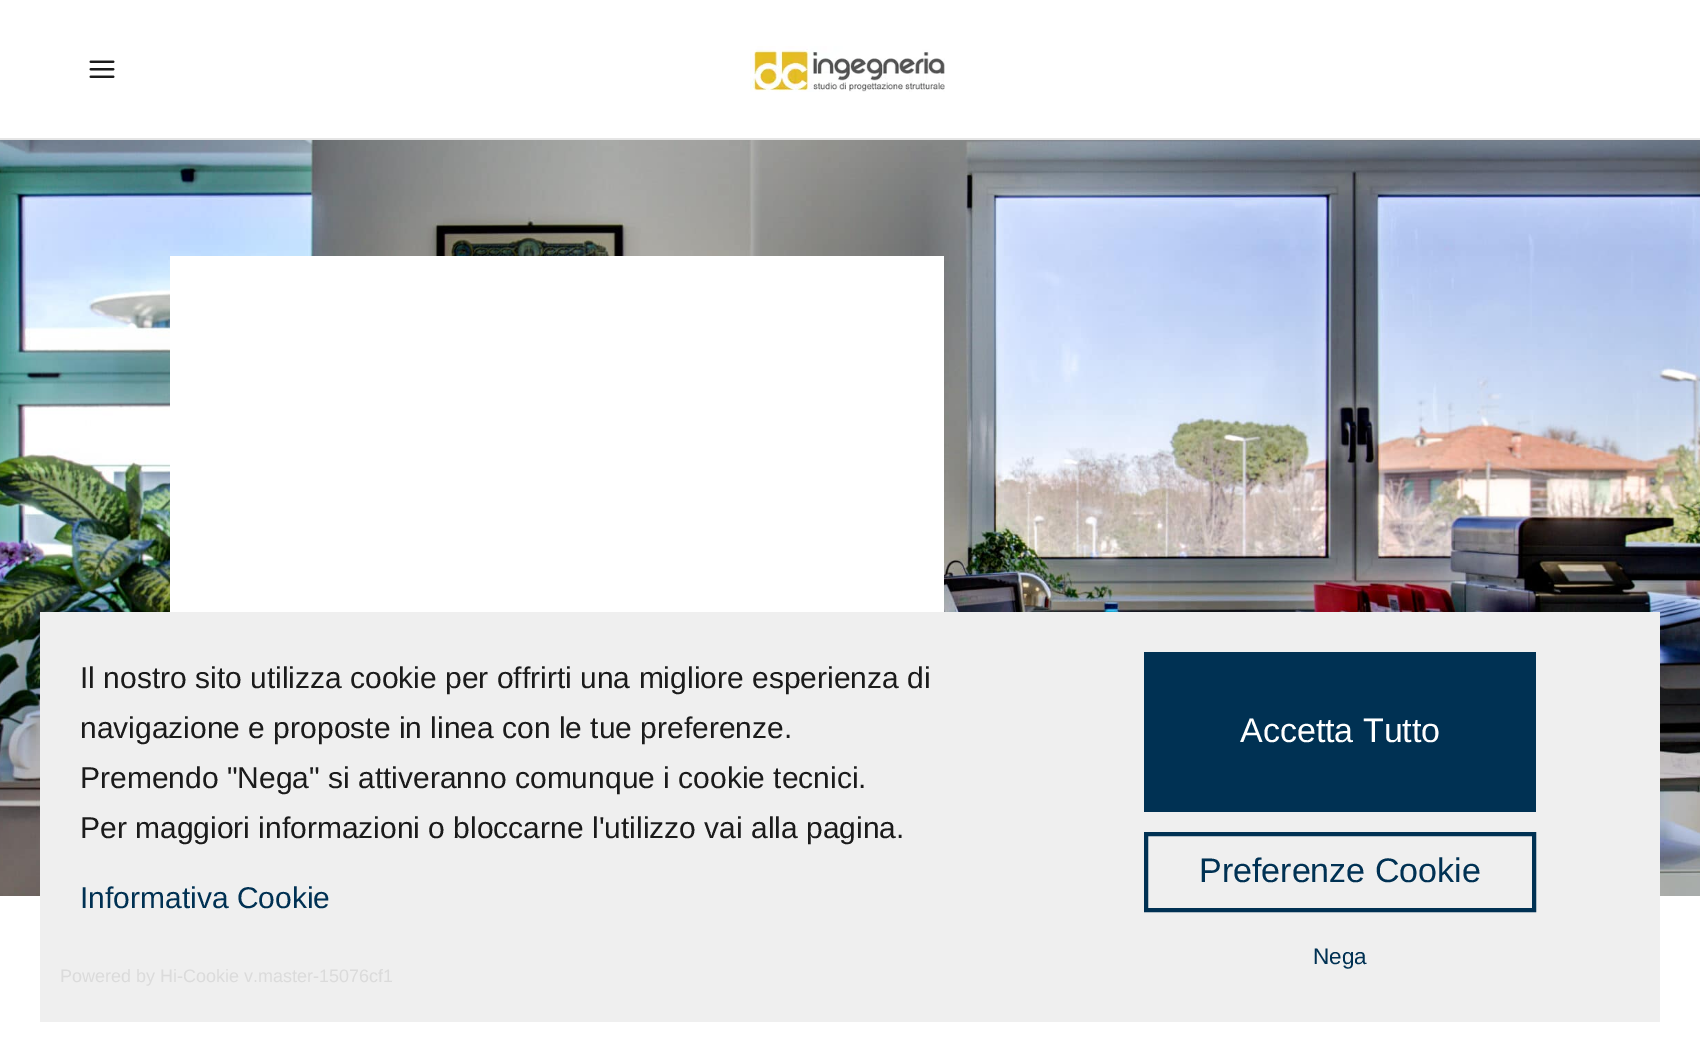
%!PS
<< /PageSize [1700 1062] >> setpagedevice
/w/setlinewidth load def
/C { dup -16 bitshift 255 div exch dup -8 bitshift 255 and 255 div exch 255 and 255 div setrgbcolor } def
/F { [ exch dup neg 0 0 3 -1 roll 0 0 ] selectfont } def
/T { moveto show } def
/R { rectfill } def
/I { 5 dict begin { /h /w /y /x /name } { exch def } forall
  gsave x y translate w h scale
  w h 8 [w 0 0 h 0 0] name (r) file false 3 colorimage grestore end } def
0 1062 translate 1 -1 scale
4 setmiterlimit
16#FFFFFF C
0 0 1700 1062 R
16#E5E5E5 C
0 138 1700 2 R
(1.rgb) 89 60 26 18 I
(2.rgb) 750 46 195 46 I
(3.rgb) 0 140 1700 756 I
16#FFFFFF C
170 256 774 356 R
16#EFEFEF C
40 612 1620 410 R
/LiberationSans-Regular 30 F
16#1B1B1B C
(Il nostro sito utilizza cookie per offrirti una migliore esperienza di) 80 688 T
(navigazione e proposte in linea con le tue preferenze.) 80 738 T
(Premendo "Nega" si attiveranno comunque i cookie tecnici.) 80 788 T
(Per maggiori informazioni o bloccarne l'utilizzo vai alla pagina.) 80 838 T
16#003153 C
(Informativa Cookie) 80 908 T
1144 652 392 160 R
/LiberationSans-Regular 34 F
16#FFFFFF C
(Accetta Tutto) 1240 742 T
16#003153 C
4 w
1146 834 388 76 rectstroke
(Preferenze Cookie) 1199 882 T
/LiberationSans-Regular 22.5 F
(Nega) 1313 964 T
/LiberationSans-Regular 18 F
16#DBDBDB C
(Powered by Hi-Cookie v.master-15076cf1) 60 982 T
showpage
